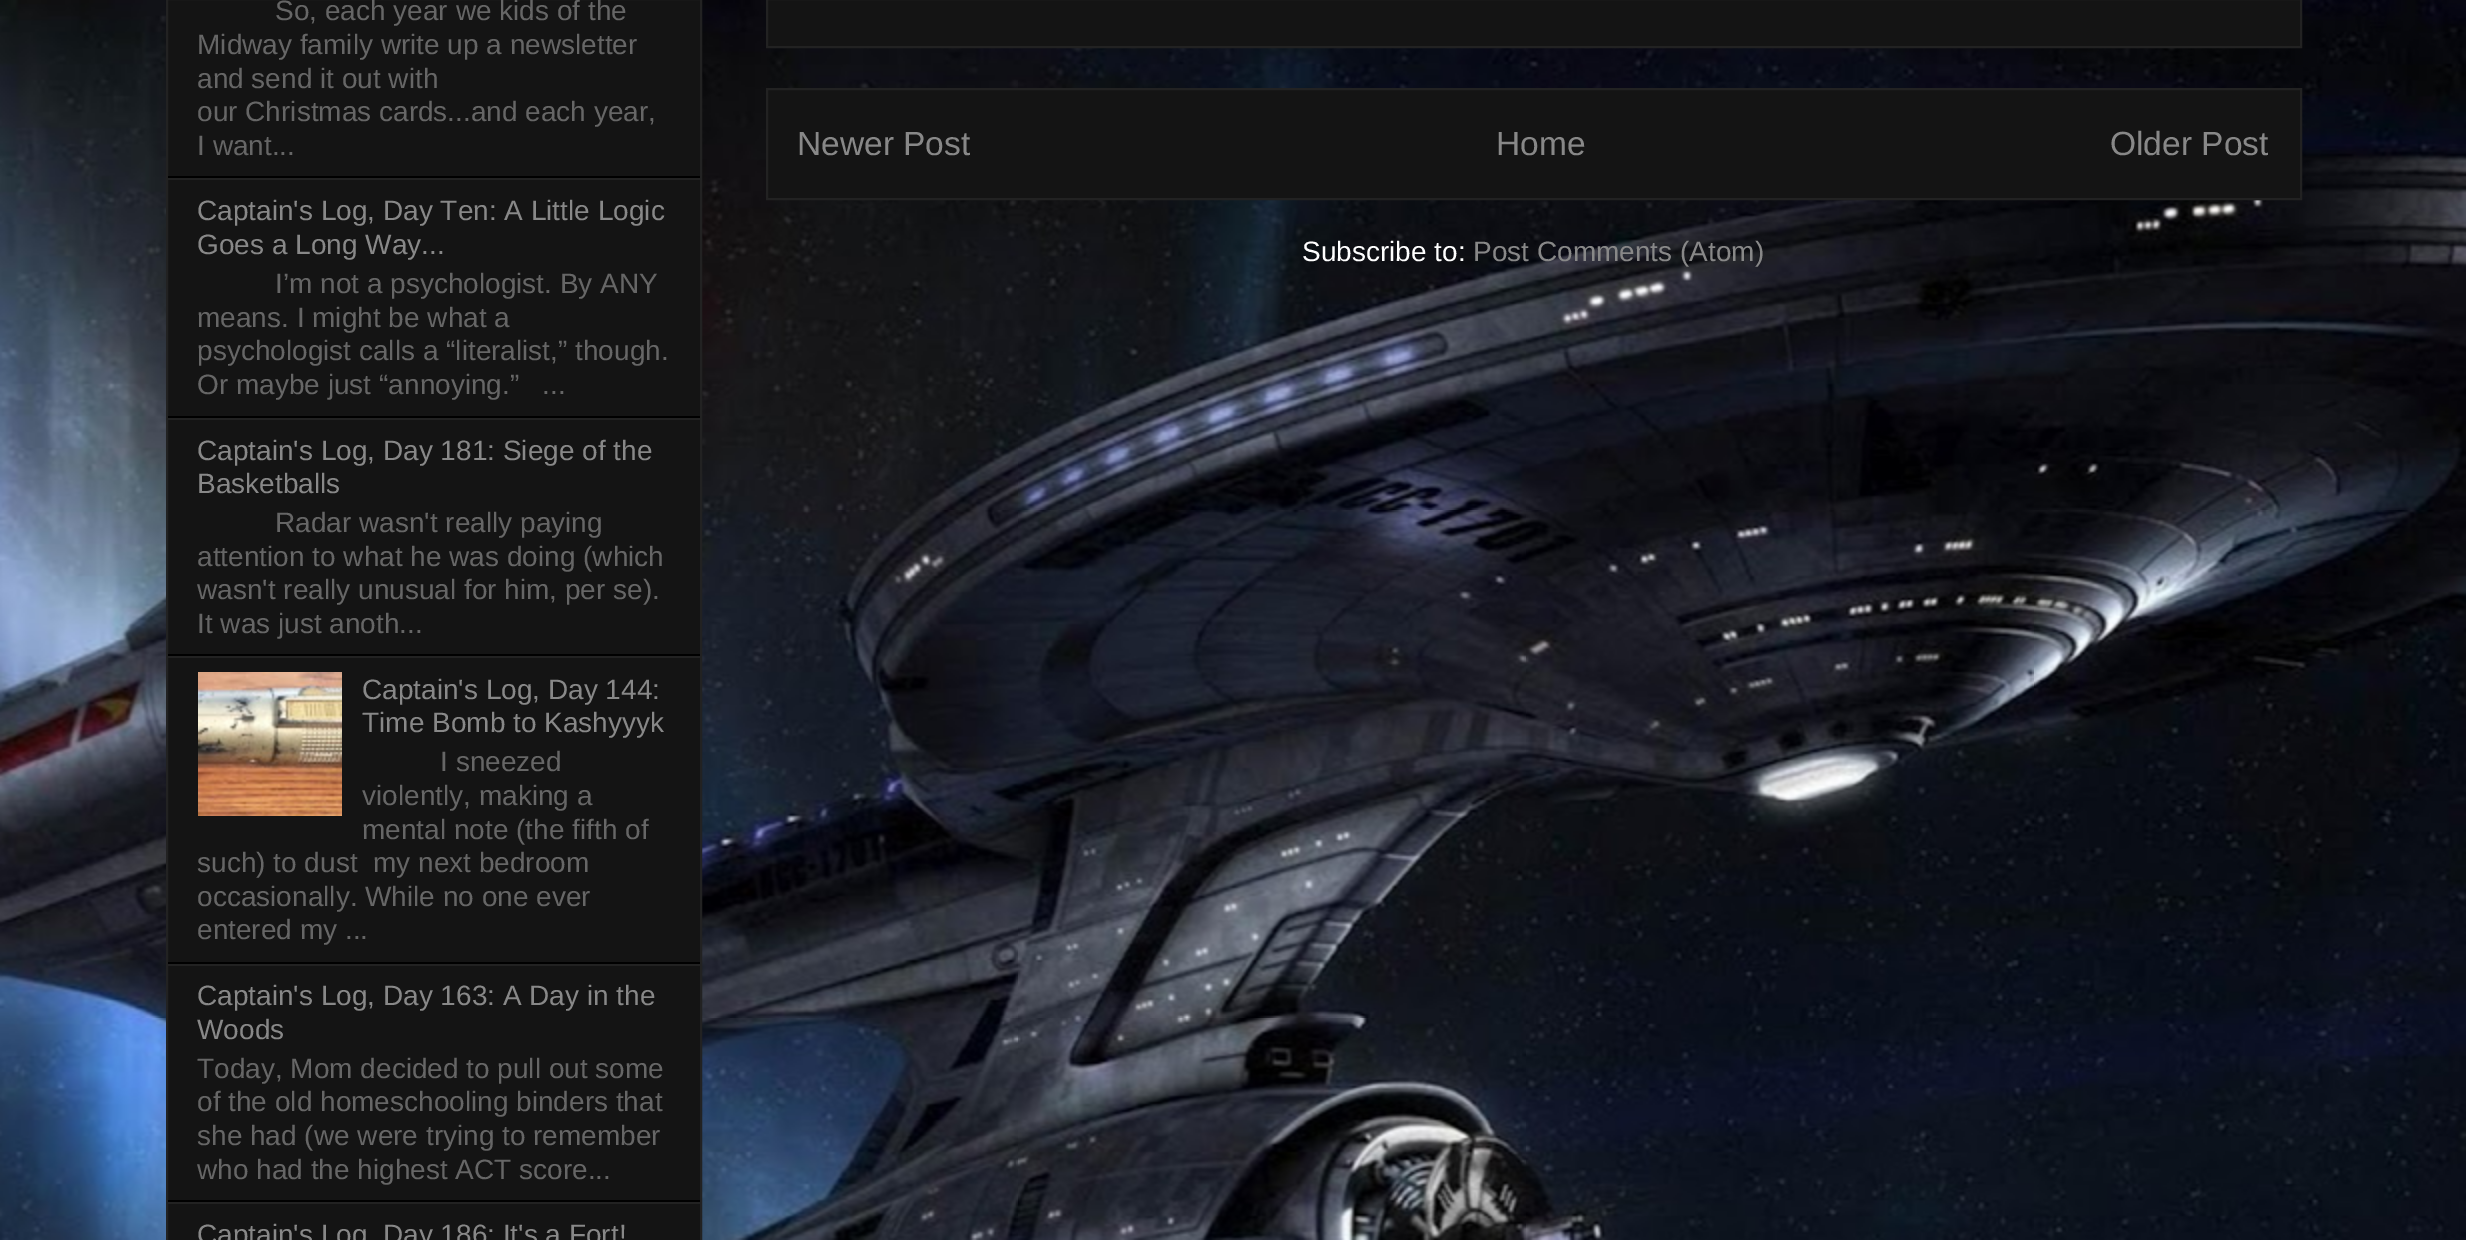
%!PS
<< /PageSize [2466 1240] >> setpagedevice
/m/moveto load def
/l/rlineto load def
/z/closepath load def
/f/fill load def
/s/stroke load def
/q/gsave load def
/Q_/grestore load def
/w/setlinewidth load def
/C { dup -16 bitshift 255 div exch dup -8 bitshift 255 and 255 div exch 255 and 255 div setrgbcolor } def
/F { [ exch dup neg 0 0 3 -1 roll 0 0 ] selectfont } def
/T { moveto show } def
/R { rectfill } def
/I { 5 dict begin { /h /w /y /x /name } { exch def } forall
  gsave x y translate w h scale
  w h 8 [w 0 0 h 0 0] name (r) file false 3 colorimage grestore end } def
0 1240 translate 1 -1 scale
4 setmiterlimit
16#FFFFFF C
0 0 2466 1240 R
(1.rgb) 0 0 2466 1240 I
16#141414 C
167 -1 m 534 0 l 0 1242 l -534 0 l z q f Q_
16#222222 C
2 w
s
16#000000 C
168 176 532 2 R
/LiberationSans-Regular 28 F
16#666666 C
(So, each year we kids of the) 275 20 T
(Midway family write up a newsletter) 197 54 T
(and send it out with) 197 88 T
(our Christmas cards...and each year,) 197 121 T
(I want...) 197 155 T
16#222222 C
168 178 532 2 R
16#000000 C
168 416 532 2 R
16#888888 C
(Captain's Log, Day Ten: A Little Logic) 197 220 T
(Goes a Long Way...) 197 254 T
16#666666 C
(I’m not a psychologist. By ANY) 275 293 T
(means. I might be what a) 197 327 T
(psychologist calls a “literalist,” though.) 197 360 T
(Or maybe just “annoying.”) 197 394 T
(...) 542 394 T
16#222222 C
168 418 532 2 R
16#000000 C
168 654 532 2 R
16#888888 C
(Captain's Log, Day 181: Siege of the) 197 460 T
(Basketballs) 197 493 T
16#666666 C
(Radar wasn't really paying) 275 532 T
(attention to what he was doing \(which) 197 566 T
(wasn't really unusual for him, per se\).) 197 599 T
(It was just anoth...) 197 633 T
16#222222 C
168 656 532 2 R
16#000000 C
168 962 532 2 R
(2.rgb) 198 672 144 144 I
16#888888 C
(Captain's Log, Day 144:) 362 699 T
(Time Bomb to Kashyyyk) 362 732 T
16#666666 C
(I sneezed) 440 771 T
(violently, making a) 362 805 T
(mental note \(the fifth of) 362 839 T
(such\) to dust  my next bedroom) 197 872 T
(occasionally. While no one ever) 197 906 T
(entered my ...) 197 939 T
16#222222 C
168 964 532 2 R
16#000000 C
168 1200 532 2 R
16#888888 C
(Captain's Log, Day 163: A Day in the) 197 1005 T
(Woods) 197 1039 T
16#666666 C
(Today, Mom decided to pull out some) 197 1078 T
(of the old homeschooling binders that) 197 1111 T
(she had \(we were trying to remember) 197 1145 T
(who had the highest ACT score...) 197 1179 T
16#222222 C
168 1202 532 2 R
16#888888 C
(Captain's Log, Day 186: It's a Fort!) 197 1244 T
16#141414 C
767 -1 m 1534 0 l 0 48 l -1534 0 l z q f Q_
16#222222 C
s
16#141414 C
767 89 m 1534 0 l 0 110 l -1534 0 l z q f Q_
16#222222 C
s
/LiberationSans-Regular 33.5 F
16#888888 C
(Newer Post) 797 155 T
(Home) 1496 155 T
(Older Post) 2110 155 T
/LiberationSans-Regular 28 F
16#FFFFFF C
(Subscribe to:) 1302 261 T
16#888888 C
(Post Comments \(Atom\)) 1473 261 T
showpage
